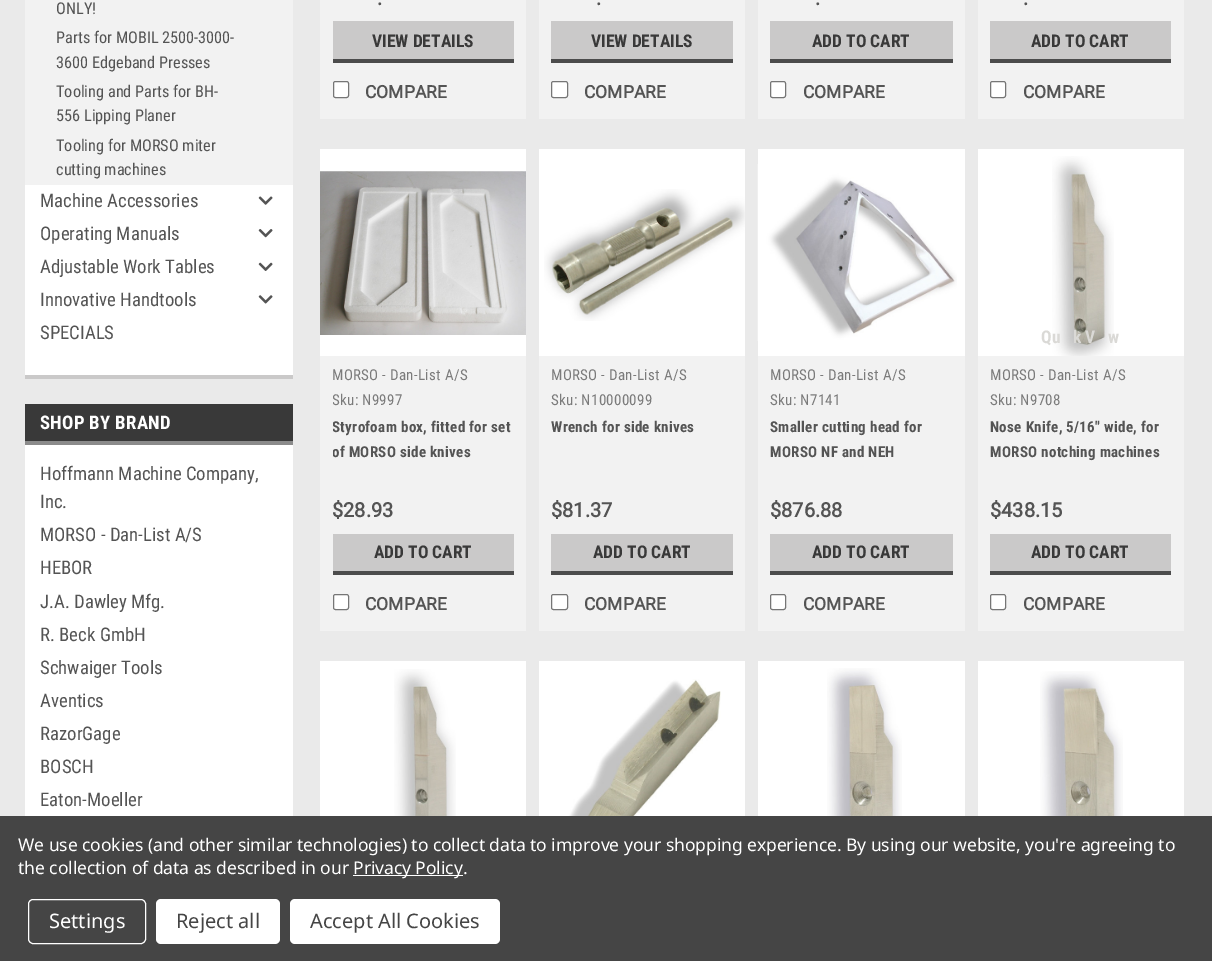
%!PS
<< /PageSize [1212 961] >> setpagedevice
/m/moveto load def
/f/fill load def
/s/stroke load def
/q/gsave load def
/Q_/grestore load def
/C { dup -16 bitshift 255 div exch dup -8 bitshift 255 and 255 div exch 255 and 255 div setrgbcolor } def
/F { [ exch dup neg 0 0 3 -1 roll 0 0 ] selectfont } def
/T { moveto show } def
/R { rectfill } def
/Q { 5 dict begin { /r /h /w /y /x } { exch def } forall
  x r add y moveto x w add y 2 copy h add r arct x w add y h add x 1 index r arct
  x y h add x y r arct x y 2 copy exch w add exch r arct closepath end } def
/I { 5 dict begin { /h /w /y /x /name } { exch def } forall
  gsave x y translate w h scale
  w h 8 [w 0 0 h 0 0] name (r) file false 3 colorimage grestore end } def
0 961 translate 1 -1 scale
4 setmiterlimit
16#EAEAEA C
0 0 1212 961 R
16#CAC9C9 C
25 375 268 4 R
16#FFFFFF C
25 185 268 190 R
16#F2F2F2 C
25 0 268 185 R
/RobotoCondensed-Regular 16.25 F
16#545454 C
(ONLY!) 56 14 T
(Parts for MOBIL 2500-3000-) 56 43 T
(3600 Edgeband Presses) 56 68 T
(Tooling and Parts for BH-) 56 97 T
(556 Lipping Planer) 56 121 T
(Tooling for MORSO miter) 56 151 T
(cutting machines) 56 175 T
/RobotoCondensed-Regular 18.75 F
(Machine Accessories) 40 207 T
(1.rgb) 258 196 15 9 I
(Operating Manuals) 40 240 T
(2.rgb) 258 229 15 9 I
(Adjustable Work Tables) 40 273 T
(3.rgb) 258 262 15 9 I
(Innovative Handtools) 40 306 T
(4.rgb) 258 295 15 9 I
(SPECIALS) 40 339 T
16#393939 C
25 404 268 37 R
16#8B8B8B C
25 441 268 4 R
/RobotoCondensed-Bold 18.75 F
16#FFFFFF C
40 429 m .3 0 (SHOP BY BRAND) ashow
25 445 268 371 R
/RobotoCondensed-Regular 18.75 F
16#545454 C
(Hoffmann Machine Company,) 40 480 T
(Inc.) 40 508 T
(MORSO - Dan-List A/S) 40 541 T
(HEBOR) 40 574 T
(J.A. Dawley Mfg.) 40 608 T
(R. Beck GmbH) 40 641 T
(Schwaiger Tools) 40 674 T
(Aventics) 40 707 T
(RazorGage) 40 740 T
(BOSCH) 40 773 T
(Eaton-Moeller) 40 806 T
16#F2F2F2 C
320 0 206 119 R
/Roboto-Bold 20 F
16#545454 C
(.) 377 5 T
16#CAC9C9 C
333 21 181 38 R
16#4C4C4C C
333 59 181 4 R
/RobotoCondensed-Bold 17.5 F
16#393939 C
(VIEW DETAILS) 372 47 T
16#FFFFFF C
333.5 81.5 15 16 2 Q q f Q_
16#767676 C
s
/Roboto-Bold 17.5 F
16#545454 C
(COMPARE) 365 98 T
16#F2F2F2 C
539 0 206 119 R
/Roboto-Bold 20 F
16#545454 C
(.) 596 5 T
16#CAC9C9 C
551 21 182 38 R
16#4C4C4C C
551 59 182 4 R
/RobotoCondensed-Bold 17.5 F
16#393939 C
(VIEW DETAILS) 591 47 T
16#FFFFFF C
551.5 81.5 16 16 2 Q q f Q_
16#767676 C
s
/Roboto-Bold 17.5 F
16#545454 C
(COMPARE) 584 98 T
16#F2F2F2 C
758 0 207 119 R
/Roboto-Bold 20 F
16#545454 C
(.) 815 5 T
16#CAC9C9 C
770 21 183 38 R
16#4C4C4C C
770 59 183 4 R
/RobotoCondensed-Bold 17.5 F
16#393939 C
(ADD TO CART) 812 47 T
16#FFFFFF C
770.5 81.5 15 16 2 Q q f Q_
16#767676 C
s
/Roboto-Bold 17.5 F
16#545454 C
(COMPARE) 803 98 T
16#F2F2F2 C
978 0 206 119 R
/Roboto-Bold 20 F
16#545454 C
(.) 1023 5 T
16#CAC9C9 C
990 21 181 38 R
16#4C4C4C C
990 59 181 4 R
/RobotoCondensed-Bold 17.5 F
16#393939 C
(ADD TO CART) 1031 47 T
16#FFFFFF C
990.5 81.5 15 16 2 Q q f Q_
16#767676 C
s
/Roboto-Bold 17.5 F
16#545454 C
(COMPARE) 1023 98 T
16#F2F2F2 C
320 356 206 275 R
16#FFFFFF C
320 149 206 207 R
(5.rgb) 320 171 206 164 I
/RobotoCondensed-Regular 15 F
16#7B7B7B C
332 380 m .3 0 (MORSO - Dan-List A/S) ashow
q
333 390 177 19 rectclip
332 405 m .3 0 (Sku:) ashow
Q_
362 405 m .3 0 (N9997) ashow
q
333 415 181 50 rectclip
/RobotoCondensed-Bold 15 F
16#545454 C
332 432 m .3 0 (Styrofoam box, fitted for set) ashow
332 457 m .3 0 (of MORSO side knives) ashow
Q_
/Roboto-Bold 20 F
16#545454 C
($28.93) 332 517 T
16#CAC9C9 C
333 534 181 37 R
16#4C4C4C C
333 571 181 4 R
/RobotoCondensed-Bold 17.5 F
16#393939 C
(ADD TO CART) 374 558 T
16#FFFFFF C
333.5 594.5 15 15 2 Q q f Q_
16#767676 C
s
/Roboto-Bold 17.5 F
16#545454 C
(COMPARE) 365 610 T
16#F2F2F2 C
539 356 206 275 R
16#FFFFFF C
539 149 206 207 R
(6.rgb) 544 189 201 132 I
/RobotoCondensed-Regular 15 F
16#7B7B7B C
551 380 m .3 0 (MORSO - Dan-List A/S) ashow
551 405 m .3 0 (Sku: N10000099) ashow
/RobotoCondensed-Bold 15 F
16#545454 C
551 432 m .3 0 (Wrench for side knives) ashow
/Roboto-Bold 20 F
($81.37) 551 517 T
16#CAC9C9 C
551 534 182 37 R
16#4C4C4C C
551 571 182 4 R
/RobotoCondensed-Bold 17.5 F
16#393939 C
(ADD TO CART) 593 558 T
16#FFFFFF C
551.5 594.5 16 15 2 Q q f Q_
16#767676 C
s
/Roboto-Bold 17.5 F
16#545454 C
(COMPARE) 584 610 T
16#F2F2F2 C
758 356 207 275 R
16#FFFFFF C
758 149 207 207 R
(7.rgb) 757 164 200 177 I
/RobotoCondensed-Regular 15 F
16#7B7B7B C
770 380 m .3 0 (MORSO - Dan-List A/S) ashow
770 405 m .3 0 (Sku: N7141) ashow
/RobotoCondensed-Bold 15 F
16#545454 C
770 432 m .3 0 (Smaller cutting head for) ashow
770 457 m .3 0 (MORSO NF and NEH) ashow
/Roboto-Bold 20 F
($876.88) 770 517 T
16#CAC9C9 C
770 534 183 37 R
16#4C4C4C C
770 571 183 4 R
/RobotoCondensed-Bold 17.5 F
16#393939 C
(ADD TO CART) 812 558 T
16#FFFFFF C
770.5 594.5 15 15 2 Q q f Q_
16#767676 C
s
/Roboto-Bold 17.5 F
16#545454 C
(COMPARE) 803 610 T
16#F2F2F2 C
978 356 206 275 R
16#FFFFFF C
978 149 206 207 R
(8.rgb) 1052 156 62 200 I
/RobotoCondensed-Bold 17.5 F
16#DAD9D6 C
(Qu) 1041 343 T
(k V) 1073 343 T
(w) 1108 343 T
/RobotoCondensed-Regular 15 F
16#7B7B7B C
990 380 m .3 0 (MORSO - Dan-List A/S) ashow
990 405 m .3 0 (Sku: N9708) ashow
/RobotoCondensed-Bold 15 F
16#545454 C
990 432 m .3 0 (Nose Knife, 5/16" wide, for) ashow
990 457 m .3 0 (MORSO notching machines) ashow
/Roboto-Bold 20 F
($438.15) 990 517 T
16#CAC9C9 C
990 534 181 37 R
16#4C4C4C C
990 571 181 4 R
/RobotoCondensed-Bold 17.5 F
16#393939 C
(ADD TO CART) 1031 558 T
16#FFFFFF C
990.5 594.5 15 15 2 Q q f Q_
16#767676 C
s
/Roboto-Bold 17.5 F
16#545454 C
(COMPARE) 1023 610 T
16#FFFFFF C
320 661 206 155 R
(9.rgb) 394 669 62 147 I
539 661 206 155 R
(10.rgb) 559 679 162 137 I
758 661 207 155 R
(11.rgb) 827 668 75 148 I
978 661 206 155 R
(12.rgb) 1040 671 83 145 I
16#454545 C
0 816 1212 145 R
/NotoSans-Regular 17.5 F
16#FFFFFF C
18 851 m -.06 0 (We use cookies \(and other similar technologies\) to collect data to improve your shopping experience. By using our website, you're agreeing to) ashow
18 874 m -.06 0 (the collection of data as described in our) ashow
353 875 110 1 R
353 874 m -.06 0 (Privacy Policy.) ashow
28.5 899.5 117 44 4.5 Q s
/NotoSans-Regular 20 F
(Settings) 49 928 T
156 899 124 45 5 Q f
16#454545 C
(Reject all) 176 928 T
16#FFFFFF C
290 899 210 45 5 Q f
16#454545 C
(Accept All Cookies) 310 928 T
showpage
